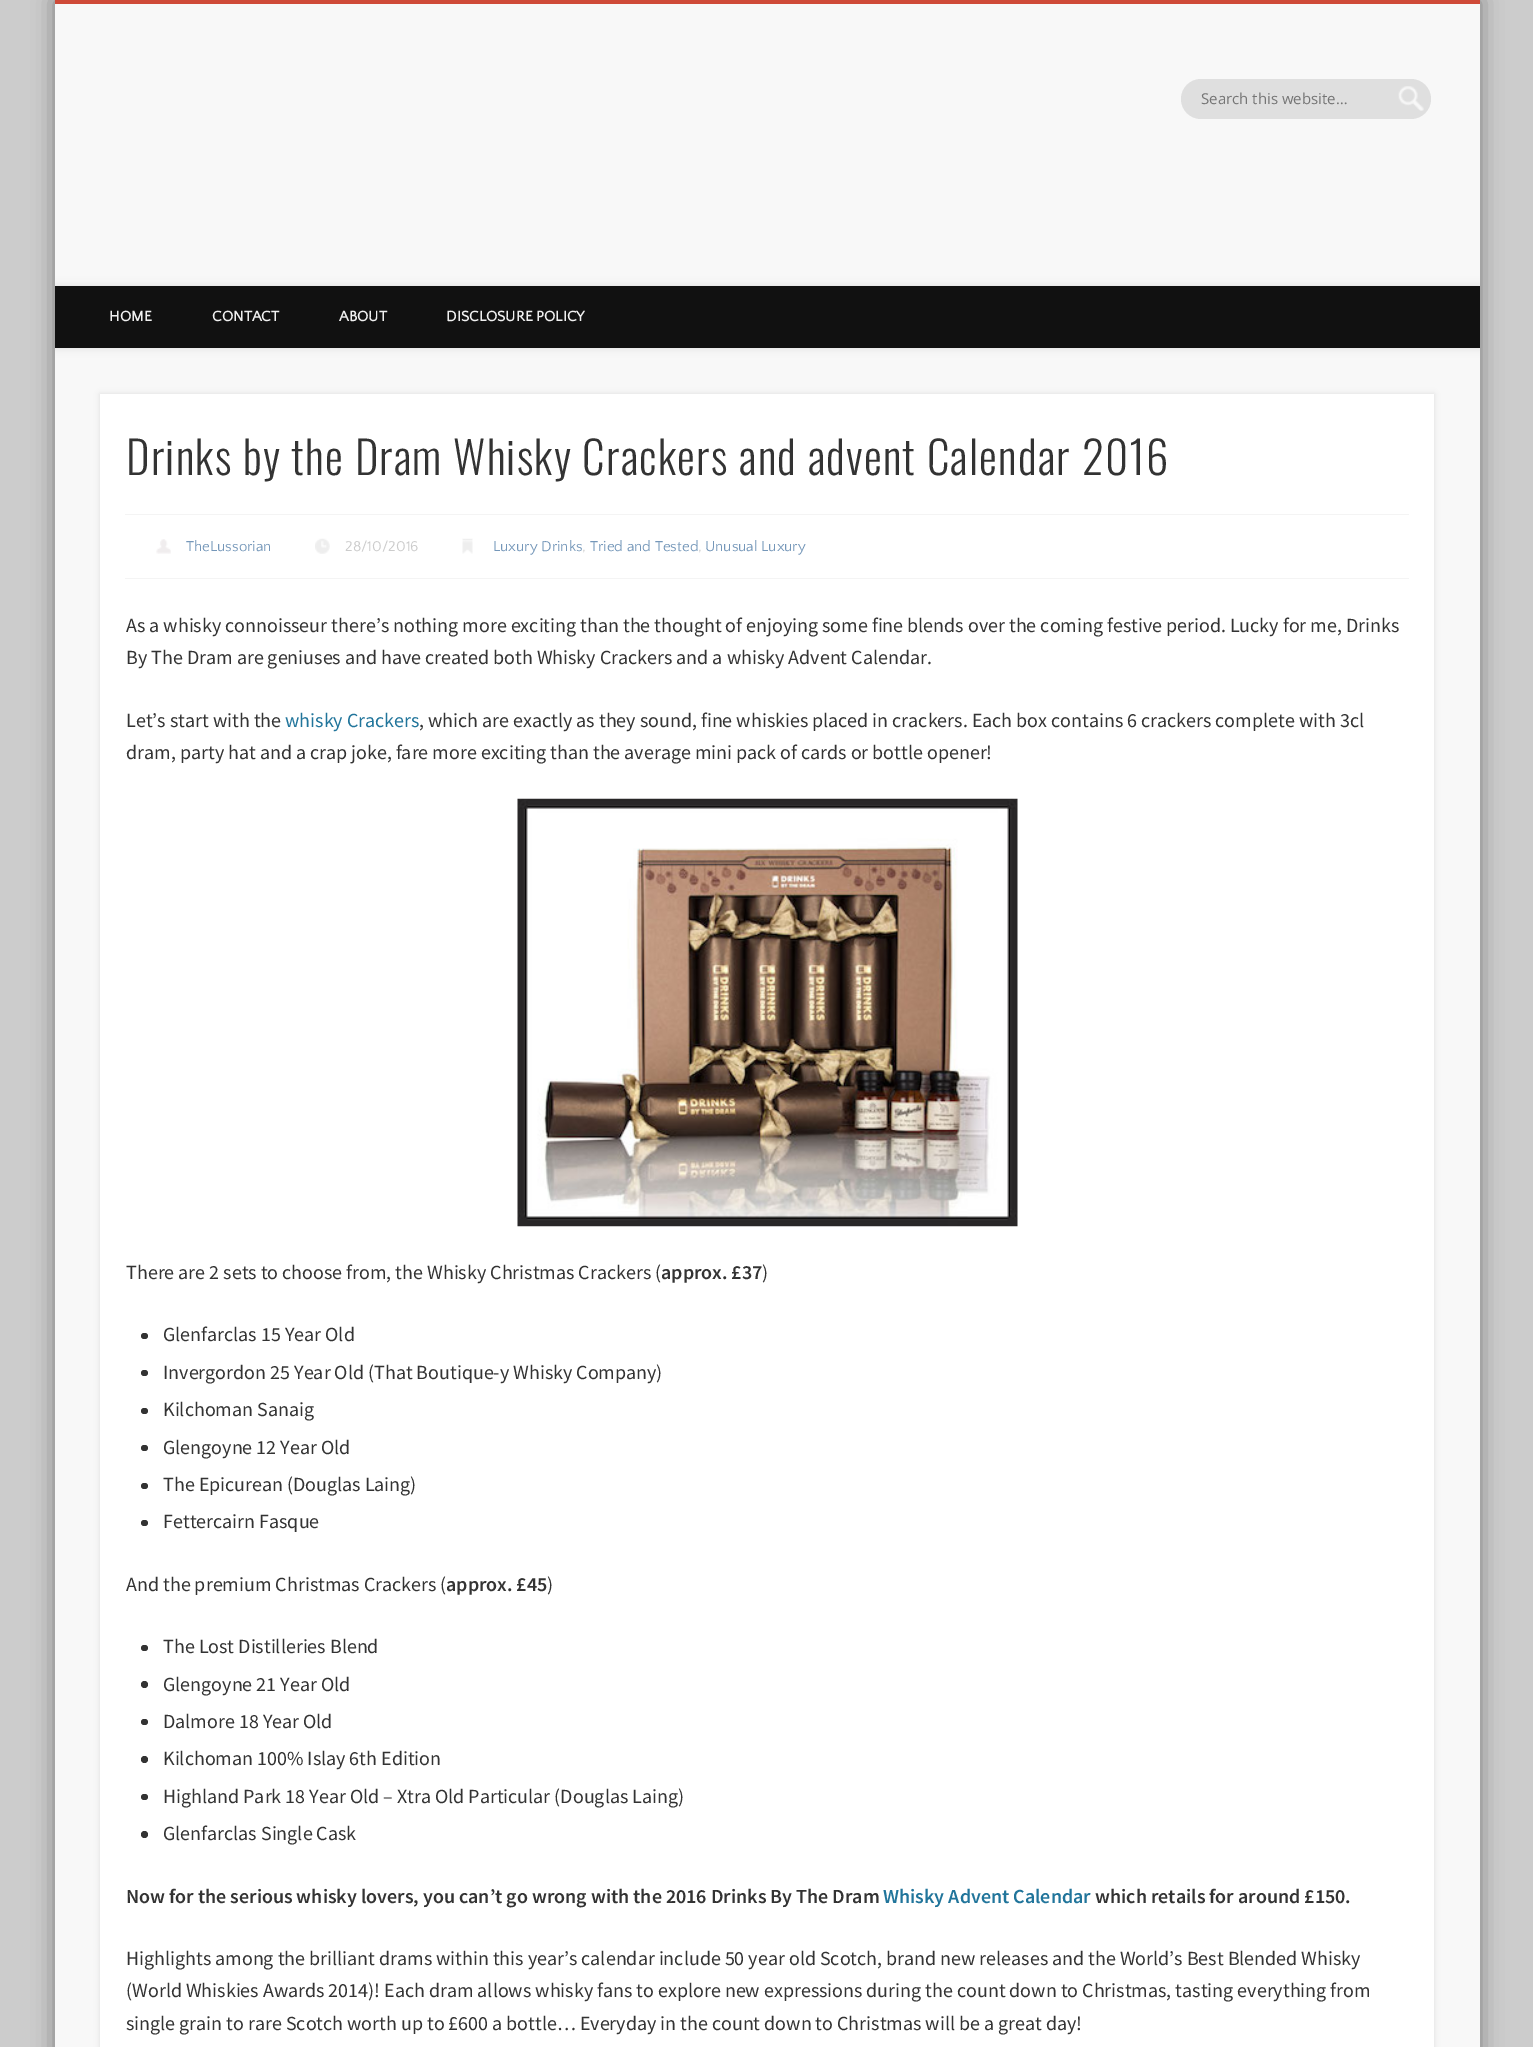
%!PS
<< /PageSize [1533 2047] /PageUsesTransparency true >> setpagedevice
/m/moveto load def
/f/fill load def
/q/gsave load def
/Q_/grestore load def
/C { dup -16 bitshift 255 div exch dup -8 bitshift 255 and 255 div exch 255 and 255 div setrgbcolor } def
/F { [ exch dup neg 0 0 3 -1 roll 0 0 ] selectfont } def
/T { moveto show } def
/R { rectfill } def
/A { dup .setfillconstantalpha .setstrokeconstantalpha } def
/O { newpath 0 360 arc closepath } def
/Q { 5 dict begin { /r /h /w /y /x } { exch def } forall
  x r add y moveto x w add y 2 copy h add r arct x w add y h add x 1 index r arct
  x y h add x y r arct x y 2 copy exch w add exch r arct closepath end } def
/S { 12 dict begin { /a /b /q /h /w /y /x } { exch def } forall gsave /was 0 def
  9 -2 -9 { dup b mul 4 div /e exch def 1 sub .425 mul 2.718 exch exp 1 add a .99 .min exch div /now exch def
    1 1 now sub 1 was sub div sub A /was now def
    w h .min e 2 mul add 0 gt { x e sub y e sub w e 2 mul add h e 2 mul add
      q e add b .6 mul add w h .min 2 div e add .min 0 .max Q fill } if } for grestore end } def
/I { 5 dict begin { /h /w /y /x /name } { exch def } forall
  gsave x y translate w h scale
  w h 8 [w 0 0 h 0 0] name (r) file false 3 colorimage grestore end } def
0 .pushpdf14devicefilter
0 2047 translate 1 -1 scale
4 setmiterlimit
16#CCCCCC C
0 0 1533 2047 R
16#000000 C
55 0 1425 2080 0 11 .4 S
16#F8F8F8 C
55 4 1425 2043 R
16#CF4A38 C
55 0 1425 4 R
16#DFDFDF C
1181 79 250 40 20 Q f
(1.rgb) 1398 86 26 25 I
/OpenSans-Regular 15 F
16#757575 C
(Search this website…) 1201 104 T
q
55 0 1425 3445 rectclip
16#000000 C
55 286 1425 62 0 4.5 .1 S
Q_
16#111111 C
55 286 1425 62 R
/QuattrocentoSans-Bold 15 F
16#F0F0F0 C
(HOME) 109 321 T
(CONTACT) 212 321 T
(ABOUT) 339 321 T
(DISCLOSURE POLICY) 446 321 T
16#000000 C
100 394 1334 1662 0 3 .1 S
16#FFFFFF C
100 394 1334 1653 R
/Oswald-Light 45 F
16#333333 C
126 475 m 1.25 0 (Drinks by the Dram Whisky Crackers and advent Calendar 2016) ashow
16#F4F4F4 C
125 514 1284 1 R
125 578 1284 1 R
(2.rgb) 156 539 15 15 I
/QuattrocentoSans-Regular 15 F
16#7597B9 C
(TheLussorian) 186 551 T
(3.rgb) 315 538 15 16 I
16#CCCCCC C
(28/10/2016) 345 551 T
(4.rgb) 462 538 11 16 I
16#7597B9 C
(Luxury Drinks) 493 551 T
16#CCCCCC C
(,) 582 551 T
16#7597B9 C
(Tried and Tested) 590 551 T
16#CCCCCC C
(,) 698 551 T
16#7597B9 C
(Unusual Luxury) 705 551 T
/SourceSansPro-Regular 20 F
16#333333 C
(As a whisky connoisseur there’s nothing more exciting than the thought of enjoying some fine blends over the coming festive period. Lucky for me, Drinks) 126 632 T
(By The Dram are geniuses and have created both Whisky Crackers and a whisky Advent Calendar.) 126 664 T
(Let’s start with the) 126 727 T
16#21759B C
(whisky Crackers) 285 727 T
16#333333 C
(, which are exactly as they sound, fine whiskies placed in crackers. Each box contains 6 crackers complete with 3cl) 419 727 T
(dram, party hat and a crap joke, fare more exciting than the average mini pack of cards or bottle opener!) 126 759 T
(5.rgb) 517 798 501 429 I
(There are 2 sets to choose from, the Whisky Christmas Crackers \() 126 1279 T
/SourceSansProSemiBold-SemiBold 20 F
(approx. £37) 661 1279 T
/SourceSansPro-Regular 20 F
(\)) 762 1279 T
141 1333 7 6 3 Q f
(Glenfarclas 15 Year Old) 163 1341 T
141 1370 7 6 3 Q f
(Invergordon 25 Year Old \(That Boutique-y Whisky Company\)) 163 1379 T
141 1408 7 6 3 Q f
(Kilchoman Sanaig) 163 1416 T
141 1445 7 6 3 Q f
(Glengoyne 12 Year Old) 163 1454 T
141 1483 7 6 3 Q f
(The Epicurean \(Douglas Laing\)) 163 1491 T
141 1520 7 6 3 Q f
(Fettercairn Fasque) 163 1528 T
(And the premium Christmas Crackers \() 126 1591 T
/SourceSansProSemiBold-SemiBold 20 F
(approx. £45) 446 1591 T
/SourceSansPro-Regular 20 F
(\)) 547 1591 T
141 1645 7 6 3 Q f
(The Lost Distilleries Blend) 163 1653 T
144.5 1684.5 3.5 O f
(Glengoyne 21 Year Old) 163 1691 T
141 1719 7 6 3 Q f
(Dalmore 18 Year Old) 163 1728 T
144.5 1759.5 3.5 O f
(Kilchoman 100% Islay 6th Edition) 163 1765 T
141 1794 7 6 3 Q f
(Highland Park 18 Year Old – Xtra Old Particular \(Douglas Laing\)) 163 1803 T
144.5 1834.5 3.5 O f
(Glenfarclas Single Cask) 163 1840 T
/SourceSansProSemiBold-SemiBold 20 F
(Now for the serious whisky lovers, you can’t go wrong with the 2016 Drinks By The Dram) 126 1903 T
16#21759B C
(Whisky Advent Calendar) 883 1903 T
16#333333 C
(which retails for around £150.) 1095 1903 T
/SourceSansPro-Regular 20 F
(Highlights among the brilliant drams within this year’s calendar include 50 year old Scotch, brand new releases and the World’s Best Blended Whisky) 126 1965 T
(\(World Whiskies Awards 2014\)! Each dram allows whisky fans to explore new expressions during the count down to Christmas, tasting everything from) 126 1997 T
(single grain to rare Scotch worth up to £600 a bottle… Everyday in the count down to Christmas will be a great day!) 126 2030 T
.poppdf14devicefilter showpage
